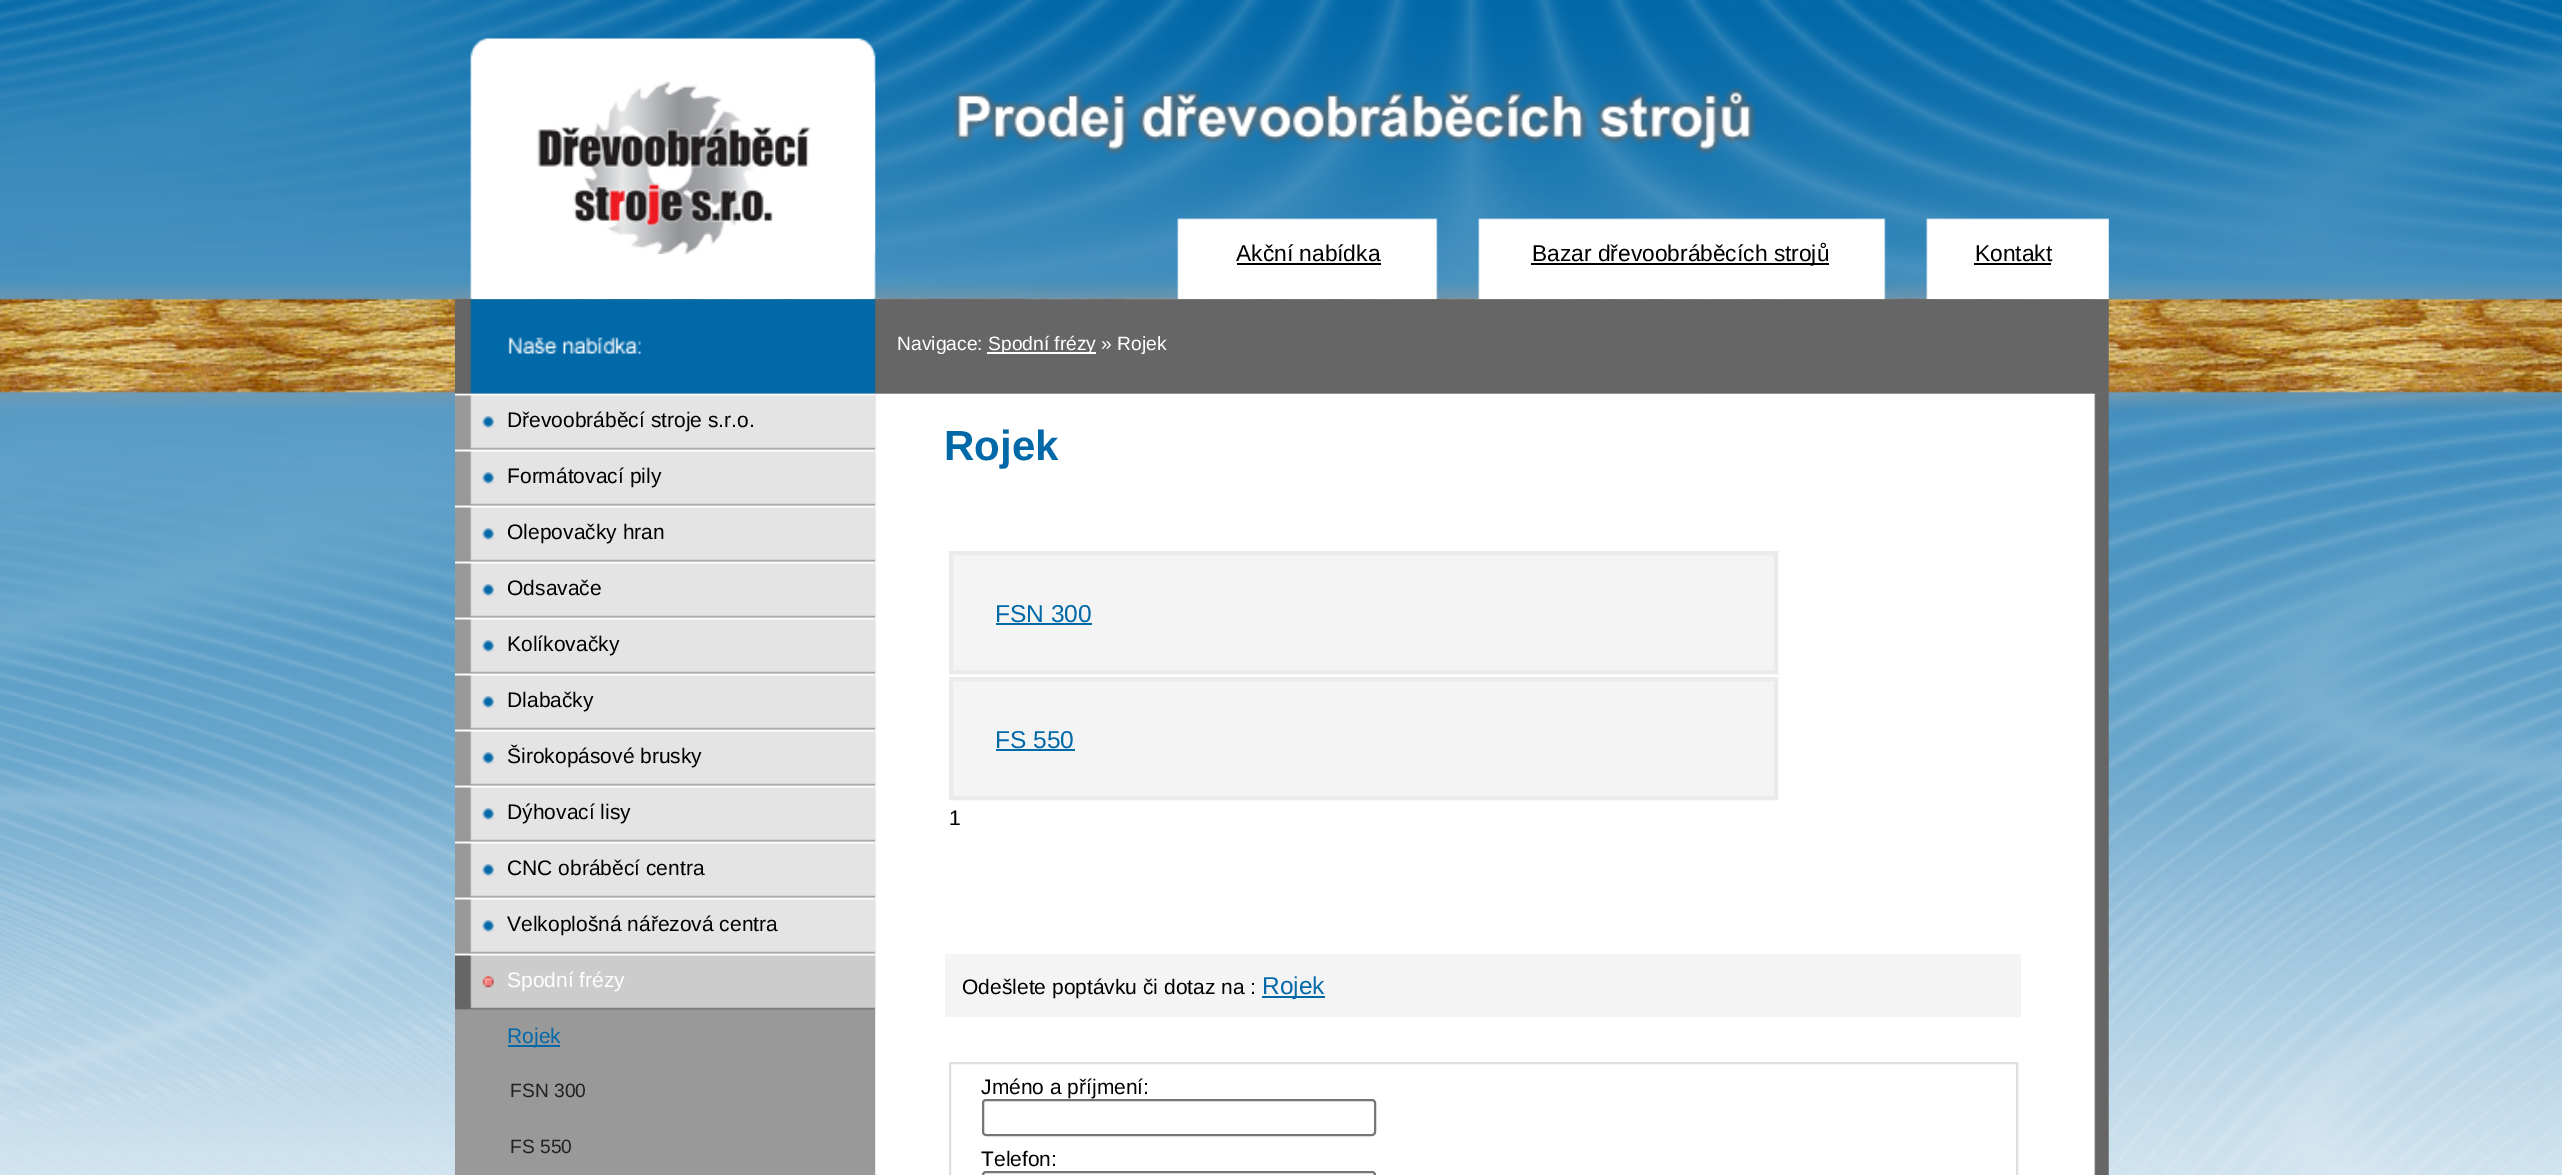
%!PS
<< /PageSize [2562 1175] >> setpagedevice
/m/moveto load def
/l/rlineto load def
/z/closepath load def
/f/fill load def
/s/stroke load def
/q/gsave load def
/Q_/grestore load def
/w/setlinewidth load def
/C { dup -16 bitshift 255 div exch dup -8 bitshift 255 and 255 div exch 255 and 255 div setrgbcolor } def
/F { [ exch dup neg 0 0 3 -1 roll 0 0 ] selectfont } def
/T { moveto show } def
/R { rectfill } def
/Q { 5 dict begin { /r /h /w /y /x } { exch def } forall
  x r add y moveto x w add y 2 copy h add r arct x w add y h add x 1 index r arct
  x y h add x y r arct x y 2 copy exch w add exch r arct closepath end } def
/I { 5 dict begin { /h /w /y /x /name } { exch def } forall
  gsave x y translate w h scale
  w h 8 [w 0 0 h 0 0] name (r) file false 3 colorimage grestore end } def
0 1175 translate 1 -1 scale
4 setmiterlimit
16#FFFFFF C
0 0 2562 1175 R
(1.rgb) 0 0 2562 1175 I
(2.rgb) 455 38 1654 262 I
(3.rgb) 535 82 340 172 I
/LiberationSans-Regular 22.75 F
16#000000 C
(Akční nabídka) 1236 261 T
1237 263 144 2 R
1531 263 298 2 R
(Bazar dřevoobráběcích strojů) 1532 261 T
(Kontakt) 1975 261 T
1974 263 77 2 R
(4.rgb) 455 299 1654 95 I
/LiberationSans-Regular 19.25 F
16#FFFFFF C
(Navigace:) 897 350 T
987 352 109 2 R
(Spodní frézy » Rojek) 988 350 T
(5.rgb) 455 393 1654 782 I
(6.rgb) 455 393 420 57 I
/LiberationSans-Regular 21 F
16#000000 C
(Dřevoobráběcí stroje s.r.o.) 507 427 T
(7.rgb) 455 449 420 57 I
(Formátovací pily) 507 483 T
(7.rgb) 455 505 420 57 I
(Olepovačky hran) 507 539 T
(7.rgb) 455 561 420 57 I
(Odsavače) 507 595 T
(7.rgb) 455 617 420 57 I
(Kolíkovačky) 507 651 T
(7.rgb) 455 673 420 57 I
(Dlabačky) 507 707 T
(7.rgb) 455 729 420 57 I
(Širokopásové brusky) 507 763 T
(7.rgb) 455 785 420 57 I
(Dýhovací lisy) 507 819 T
(7.rgb) 455 841 420 57 I
(CNC obráběcí centra) 507 875 T
(7.rgb) 455 897 420 57 I
(Velkoplošná nářezová centra) 507 931 T
(8.rgb) 455 953 420 57 I
16#FFFFFF C
(Spodní frézy) 507 987 T
16#999999 C
874 1010 1 165 R
16#0269A9 C
508 1045 52 2 R
(Rojek) 507 1043 T
/LiberationSans-Regular 19.25 F
16#222222 C
(FSN 300) 510 1097 T
(FS 550) 510 1153 T
/LiberationSans-Bold 42 F
16#0269A9 C
(Rojek) 944 460 T
16#F4F4F4 C
951 553 m 825 0 l 0 119 l -825 0 l z q f Q_
16#EBEBEB C
4 w
s
/LiberationSans-Regular 24.5 F
16#0269A9 C
(FSN 300) 995 622 T
996 623 96 2 R
16#F4F4F4 C
951 679 m 825 0 l 0 119 l -825 0 l z q f Q_
16#EBEBEB C
s
16#0269A9 C
(FS 550) 995 748 T
996 749 79 2 R
/LiberationSans-Regular 21 F
16#000000 C
(1) 949 825 T
16#F4F4F4 C
945 954 1076 63 R
16#000000 C
(Odešlete poptávku či dotaz na :) 962 994 T
16#0269A9 C
1262 996 63 2 R
/LiberationSans-Regular 24.5 F
(Rojek) 1262 994 T
16#DFDFDF C
2 w
950 1063 1067 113 rectstroke
/LiberationSans-Regular 21 F
16#000000 C
(Jméno a příjmení:) 981 1094 T
16#767676 C
983 1100 392 35 3 Q s
16#000000 C
(Telefon:) 981 1166 T
16#767676 C
983 1172 392 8 3 Q s
showpage
